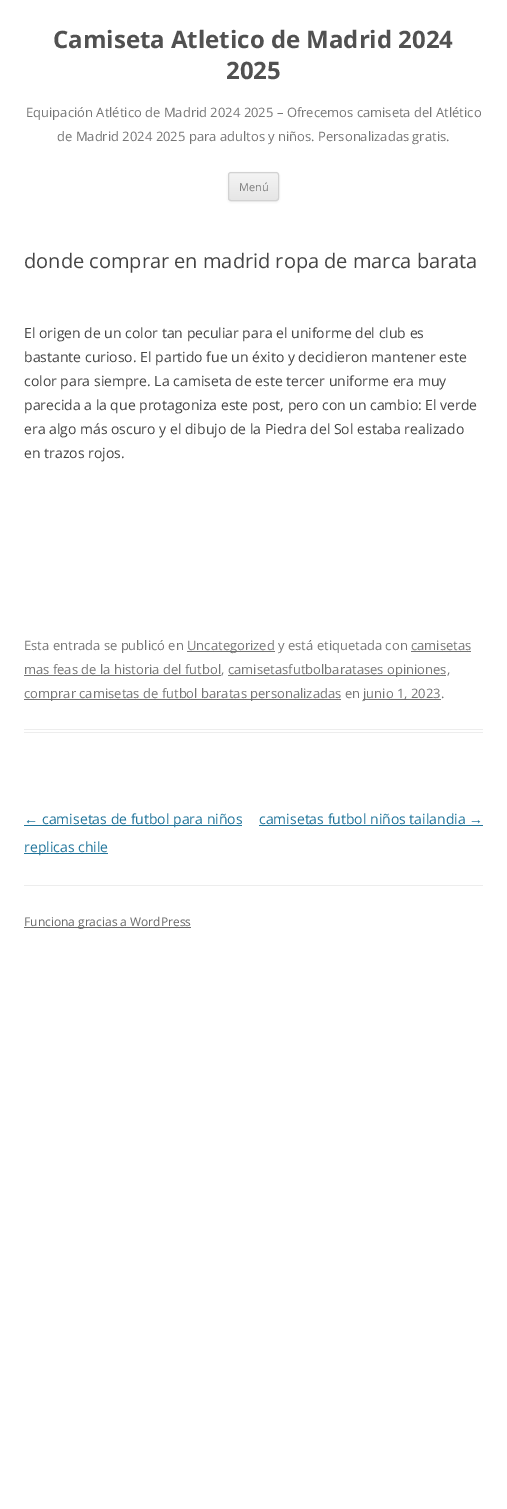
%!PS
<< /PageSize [507 1509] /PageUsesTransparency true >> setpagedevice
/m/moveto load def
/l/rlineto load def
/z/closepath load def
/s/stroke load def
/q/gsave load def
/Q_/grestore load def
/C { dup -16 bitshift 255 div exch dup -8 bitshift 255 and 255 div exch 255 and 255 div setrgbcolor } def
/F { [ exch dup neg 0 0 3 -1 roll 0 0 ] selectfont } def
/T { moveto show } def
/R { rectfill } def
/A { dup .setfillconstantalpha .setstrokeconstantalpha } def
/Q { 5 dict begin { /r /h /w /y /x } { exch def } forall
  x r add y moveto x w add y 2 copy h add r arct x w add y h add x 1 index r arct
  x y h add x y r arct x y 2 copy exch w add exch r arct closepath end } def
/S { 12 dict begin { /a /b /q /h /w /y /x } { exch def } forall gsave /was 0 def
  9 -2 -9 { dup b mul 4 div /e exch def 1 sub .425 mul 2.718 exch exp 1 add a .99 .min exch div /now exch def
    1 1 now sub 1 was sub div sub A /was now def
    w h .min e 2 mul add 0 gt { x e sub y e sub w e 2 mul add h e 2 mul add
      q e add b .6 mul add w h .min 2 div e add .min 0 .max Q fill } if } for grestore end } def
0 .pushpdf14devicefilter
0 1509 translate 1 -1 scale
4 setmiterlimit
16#FFFFFF C
0 0 507 1509 R
/OpenSans-Bold 24 F
16#515151 C
(Camiseta Atletico de Madrid 2024) 53 48 T
(2025) 226 79 T
/OpenSans-Regular 13 F
16#757575 C
(Equipación Atlético de Madrid 2024 2025 – Ofrecemos camiseta del Atlético) 26 117 T
(de Madrid 2024 2025 para adultos y niños. Personalizadas gratis.) 57 141 T
16#404040 C
228 173 51 29 3 1 .1 S
q
228 172 51 29 3 Q clip newpath
q 228 173 m 51 0 l 0 27 l -51 0 l z clip newpath
<< /ShadingType 2 /ColorSpace /DeviceRGB /Coords [254 173 254 200] /Extend [true true] /Function << /FunctionType 2 /Domain [0 1] /C0 [.957 .957 .957] /C1 [.902 .902 .902] /N 1 >> >> shfill Q_
Q_
16#D2D2D2 C
228.5 172.5 50 28 2.5 Q s
/OpenSans-Regular 11 F
16#7C7C7C C
(Menú) 239 191 T
16#EDEDED C
24 729 459 1 R
24 732 459 1 R
/OpenSans-Regular 20 F
16#444444 C
(donde comprar en madrid ropa de marca barata) 24 268 T
/OpenSans-Regular 14 F
(El origen de un color tan peculiar para el uniforme del club es) 24 338 T
(bastante curioso. El partido fue un éxito y decidieron mantener este) 24 362 T
(color para siempre. La camiseta de este tercer uniforme era muy) 24 386 T
(parecida a la que protagoniza este post, pero con un cambio: El verde) 24 410 T
(era algo más oscuro y el dibujo de la Piedra del Sol estaba realizado) 24 434 T
(en trazos rojos.) 24 458 T
/OpenSans-Regular 13 F
16#757575 C
(Esta entrada se publicó en) 24 650 T
187 651 88 1 R
(Uncategorized y está etiquetada con camisetas) 187 650 T
24 675 197 1 R
(mas feas de la historia del futbol,) 24 674 T
411 651 60 1 R
228 675 218 1 R
(camisetasfutbolbaratases opiniones,) 228 674 T
24 699 317 1 R
(comprar camisetas de futbol baratas personalizadas en) 24 698 T
363 699 78 1 R
(junio 1, 2023.) 363 698 T
/LiberationSans-Regular 14 F
16#21759B C
(←) 24 824 T
24 825 218 1 R
/OpenSans-Regular 14 F
(camisetas de futbol para niños) 42 824 T
24 853 84 1 R
(replicas chile) 24 852 T
(camisetas futbol niños tailandia) 259 824 T
/LiberationSans-Regular 14 F
(→) 469 824 T
259 825 224 1 R
16#EDEDED C
24 885 459 1 R
16#686868 C
24 927 167 1 R
/OpenSans-Regular 12 F
(Funciona gracias a WordPress) 24 926 T
.poppdf14devicefilter showpage
